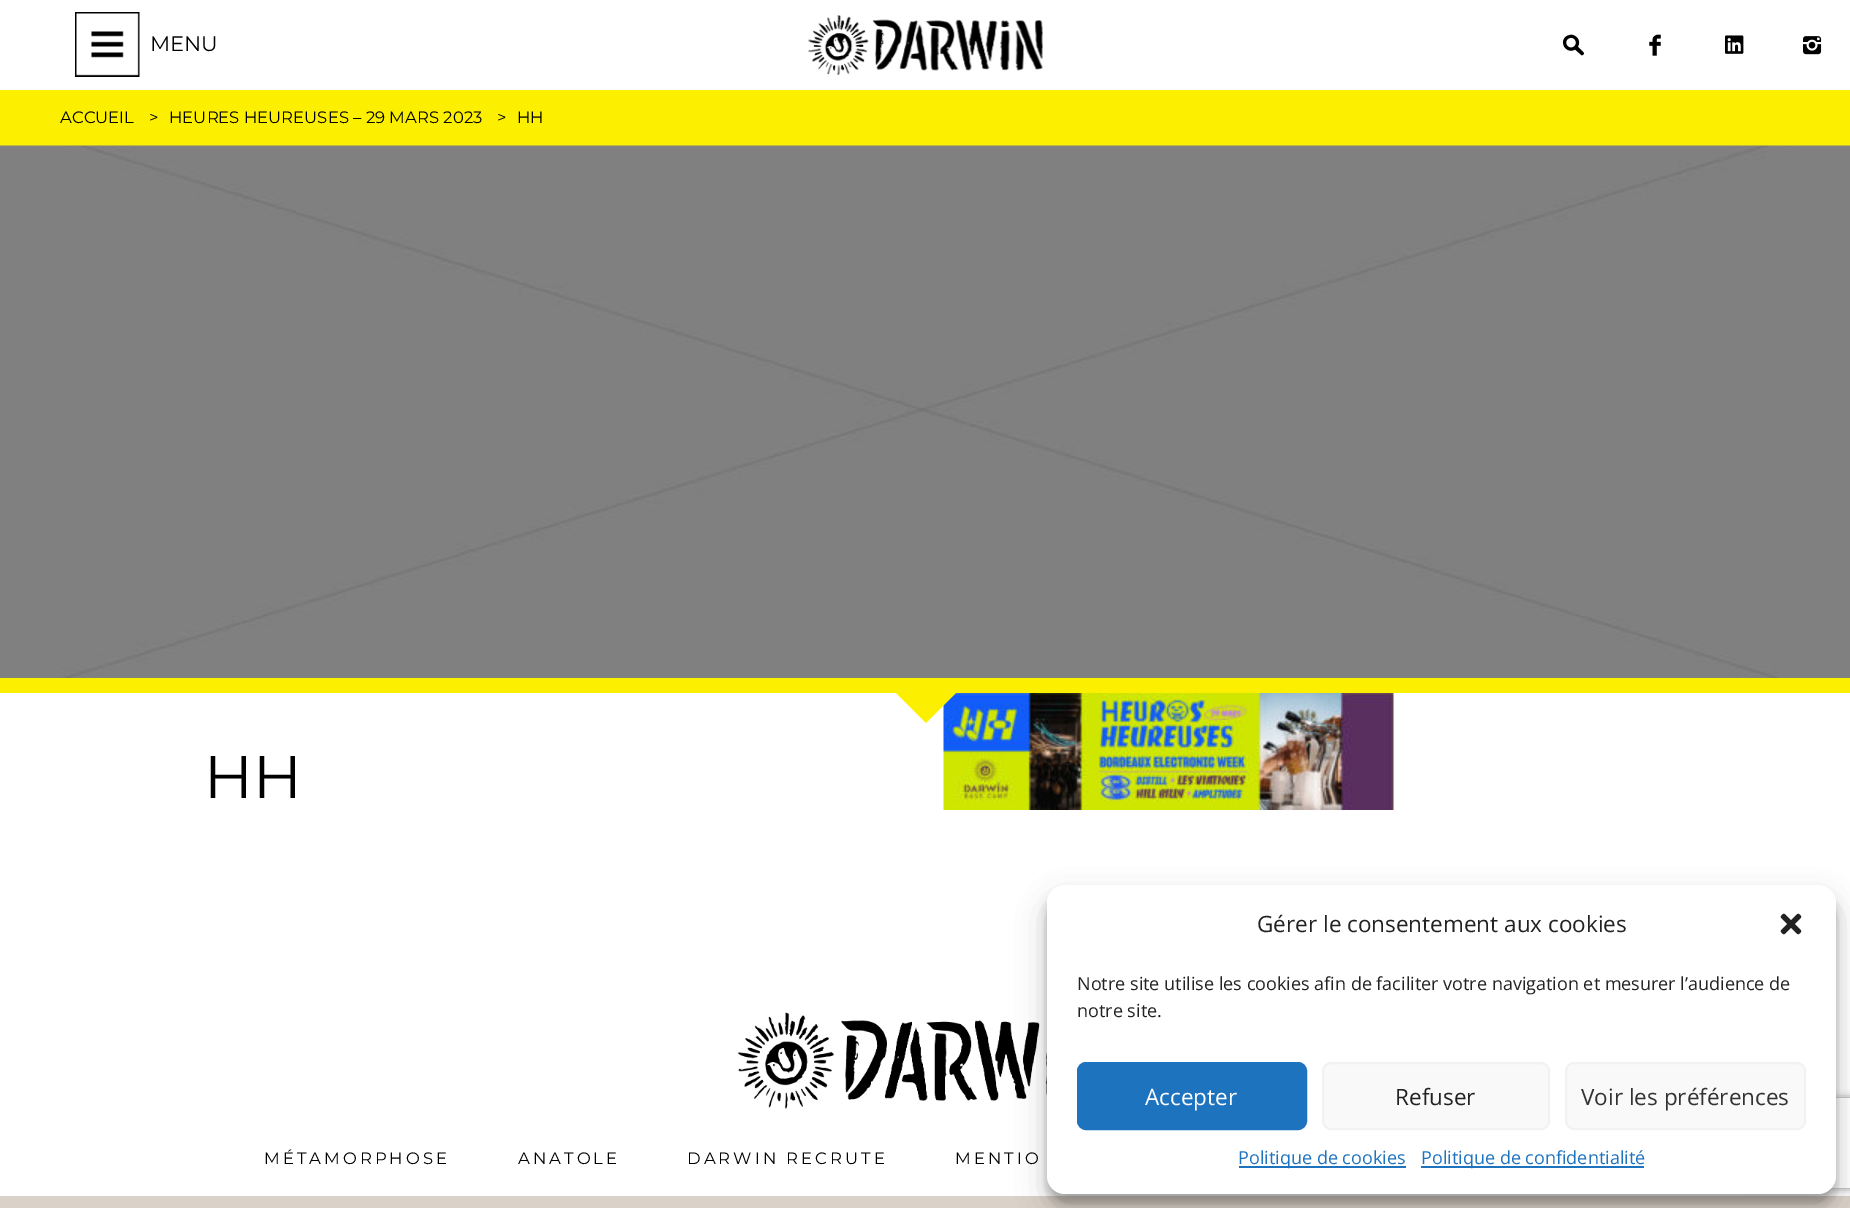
%!PS
<< /PageSize [1850 1208] /PageUsesTransparency true >> setpagedevice
/m/moveto load def
/l/rlineto load def
/c/rcurveto load def
/z/closepath load def
/f/fill load def
/s/stroke load def
/q/gsave load def
/Q_/grestore load def
/w/setlinewidth load def
/C { dup -16 bitshift 255 div exch dup -8 bitshift 255 and 255 div exch 255 and 255 div setrgbcolor } def
/F { [ exch dup neg 0 0 3 -1 roll 0 0 ] selectfont } def
/T { moveto show } def
/R { rectfill } def
/A { dup .setfillconstantalpha .setstrokeconstantalpha } def
/Q { 5 dict begin { /r /h /w /y /x } { exch def } forall
  x r add y moveto x w add y 2 copy h add r arct x w add y h add x 1 index r arct
  x y h add x y r arct x y 2 copy exch w add exch r arct closepath end } def
/S { 12 dict begin { /a /b /q /h /w /y /x } { exch def } forall gsave /was 0 def
  9 -2 -9 { dup b mul 4 div /e exch def 1 sub .425 mul 2.718 exch exp 1 add a .99 .min exch div /now exch def
    1 1 now sub 1 was sub div sub A /was now def
    w h .min e 2 mul add 0 gt { x e sub y e sub w e 2 mul add h e 2 mul add
      q e add b .6 mul add w h .min 2 div e add .min 0 .max Q fill } if } for grestore end } def
/I { 5 dict begin { /h /w /y /x /name } { exch def } forall
  gsave x y translate w h scale
  w h 8 [w 0 0 h 0 0] name (r) file false 3 colorimage grestore end } def
0 .pushpdf14devicefilter
0 1208 translate 1 -1 scale
4 setmiterlimit
16#DAD1C8 C
0 0 1850 1208 R
16#FFFFFF C
0 0 1850 90 R
(1.rgb) 75 12 65 65 I
/Montserrat-Thin 21 F
16#000000 C
(MENU) 150 51 T
(2.rgb) 808 15 235 60 I
(3.rgb) 1563 34 21 22 I
(4.rgb) 1649 34 12 22 I
(5.rgb) 1725 35 19 19 I
(6.rgb) 1803 36 19 19 I
16#FFFFFF C
0 693 1850 503 R
16#FCEF00 C
0 90 1850 56 R
/Montserrat-Thin 16.5 F
16#000000 C
(ACCUEIL) 60 123 T
(>) 149 123 T
(HEURES HEUREUSES – 29 MARS 2023) 169 123 T
(>) 497 123 T
(HH) 517 123 T
(7.rgb) 0 145 1850 533 I
16#FCEF00 C
0 678 1850 15 R
(8.rgb) 943 693 451 117 I
896 693 m 60 0 l -30 30 l z f
/Montserrat-Thin 60 F
16#000000 C
(HH) 204 798 T
(9.rgb) 738 1012 309 97 I
/Montserrat-Thin 16.5 F
264 1164 m 3 0 (MÉTAMORPHOSE) ashow
518 1164 m 3 0 (ANATOLE) ashow
687 1164 m 3 0 (DARWIN RECRUTE) ashow
955 1164 m 3 0 (MENTIO) ashow
1047 894 789 309 18 4.5 .23 S
1047 900 789 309 18 15 .19 S
q
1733 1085 m 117 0 l 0 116 l -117 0 l z 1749 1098 m 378 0 l 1.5 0 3 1.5 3 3 c 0 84 l 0 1.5 -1.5 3 -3 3 c -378 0 l -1.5 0 -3 -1.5 -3 -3 c 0 -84 l 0 -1.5 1.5 -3 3 -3 c z eoclip newpath
16#808080 C
1746 1098 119 90 3 4 1 S
Q_
16#FFFFFF C
1047 885 789 309 18 Q f
/OpenSans-Regular 22.5 F
16#222222 C
(Gérer le consentement aux cookies) 1257 932 T
(10.rgb) 1780 913 22 22 I
/OpenSans-Regular 18 F
(Notre site utilise les cookies afin de faciliter votre navigation et mesurer l’audience de) 1077 990 T
(notre site.) 1077 1017 T
16#1E73BE C
1078 1063 228 66 8 Q q f Q_
2 w
s
/OpenSans-Regular 22.5 F
16#FFFFFF C
(Accepter) 1145 1105 T
16#F9F9F9 C
1323 1063 226 66 8 Q q f Q_
16#F2F2F2 C
s
16#222222 C
(Refuser) 1395 1105 T
16#F9F9F9 C
1566 1063 239 66 8 Q q f Q_
16#F2F2F2 C
s
16#333333 C
(Voir les préférences) 1581 1105 T
16#1E73BE C
1239 1166 167 2 R
/OpenSans-Regular 18 F
(Politique de cookies) 1238 1164 T
1421 1166 223 2 R
(Politique de confidentialité) 1421 1164 T
.poppdf14devicefilter showpage
